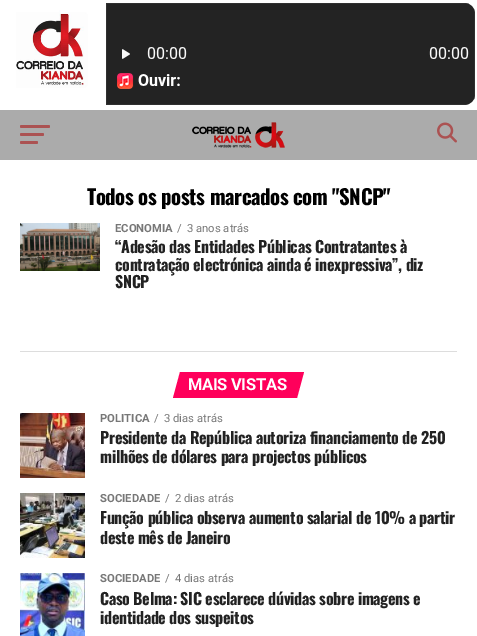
%!PS
<< /PageSize [477 636] >> setpagedevice
/m/moveto load def
/l/rlineto load def
/z/closepath load def
/f/fill load def
/C { dup -16 bitshift 255 div exch dup -8 bitshift 255 and 255 div exch 255 and 255 div setrgbcolor } def
/F { [ exch dup neg 0 0 3 -1 roll 0 0 ] selectfont } def
/T { moveto show } def
/R { rectfill } def
/Q { 5 dict begin { /r /h /w /y /x } { exch def } forall
  x r add y moveto x w add y 2 copy h add r arct x w add y h add x 1 index r arct
  x y h add x y r arct x y 2 copy exch w add exch r arct closepath end } def
/I { 5 dict begin { /h /w /y /x /name } { exch def } forall
  gsave x y translate w h scale
  w h 8 [w 0 0 h 0 0] name (r) file false 3 colorimage grestore end } def
0 636 translate 1 -1 scale
4 setmiterlimit
16#FFFFFF C
0 0 477 636 R
(1.rgb) 16 3 459 102 I
16#ABABAB C
0 110 477 50 R
16#AB5252 C
20 125 30 3 1.5 Q f
20 133 24 3 1.5 Q f
20 141 18 3 1.5 Q f
(2.rgb) 192 122 93 26 I
(3.rgb) 437 122 20 21 I
/Oswald-Bold 20.75 F
16#000000 C
87 205 m -.4 0 (Todos os posts marcados com "SNCP") ashow
(4.rgb) 20 223 80 48 I
/Roboto-Bold 11.25 F
16#777777 C
(ECONOMIA) 115 232 T
/Roboto-Regular 11.25 F
(/) 177 232 T
(3 anos atrás) 187 232 T
/Oswald-Bold 16 F
16#222222 C
115 253 m -.32 0 (“Adesão das Entidades Públicas Contratantes à) ashow
115 271 m -.32 0 (contratação electrónica ainda é inexpressiva”, diz) ashow
115 288 m -.32 0 (SNCP) ashow
16#DDDDDD C
20 351 437 1 R
16#FF005B C
180 372 m 124 0 l -7 26 l -124 0 l z f
/Roboto-Bold 16.5 F
16#FFFFFF C
188 390 m -.32 0 (MAIS VISTAS) ashow
(5.rgb) 20 413 65 65 I
/Roboto-Bold 11.25 F
16#777777 C
(POLITICA) 100 422 T
/Roboto-Regular 11.25 F
(/) 154 422 T
(3 dias atrás) 164 422 T
/Oswald-Bold 16 F
16#222222 C
100 444 m -.32 0 (Presidente da República autoriza financiamento de 250) ashow
100 463 m -.32 0 (milhões de dólares para projectos públicos) ashow
(6.rgb) 20 493 65 65 I
/Roboto-Bold 11.25 F
16#777777 C
(SOCIEDADE) 100 502 T
/Roboto-Regular 11.25 F
(/) 165 502 T
(2 dias atrás) 175 502 T
/Oswald-Bold 16 F
16#222222 C
100 524 m -.32 0 (Função pública observa aumento salarial de 10% a partir) ashow
100 544 m -.32 0 (deste mês de Janeiro) ashow
(7.rgb) 20 573 65 63 I
/Roboto-Bold 11.25 F
16#777777 C
(SOCIEDADE) 100 582 T
/Roboto-Regular 11.25 F
(/) 165 582 T
(4 dias atrás) 175 582 T
/Oswald-Bold 16 F
16#222222 C
100 605 m -.32 0 (Caso Belma: SIC esclarece dúvidas sobre imagens e) ashow
100 624 m -.32 0 (identidade dos suspeitos) ashow
showpage
